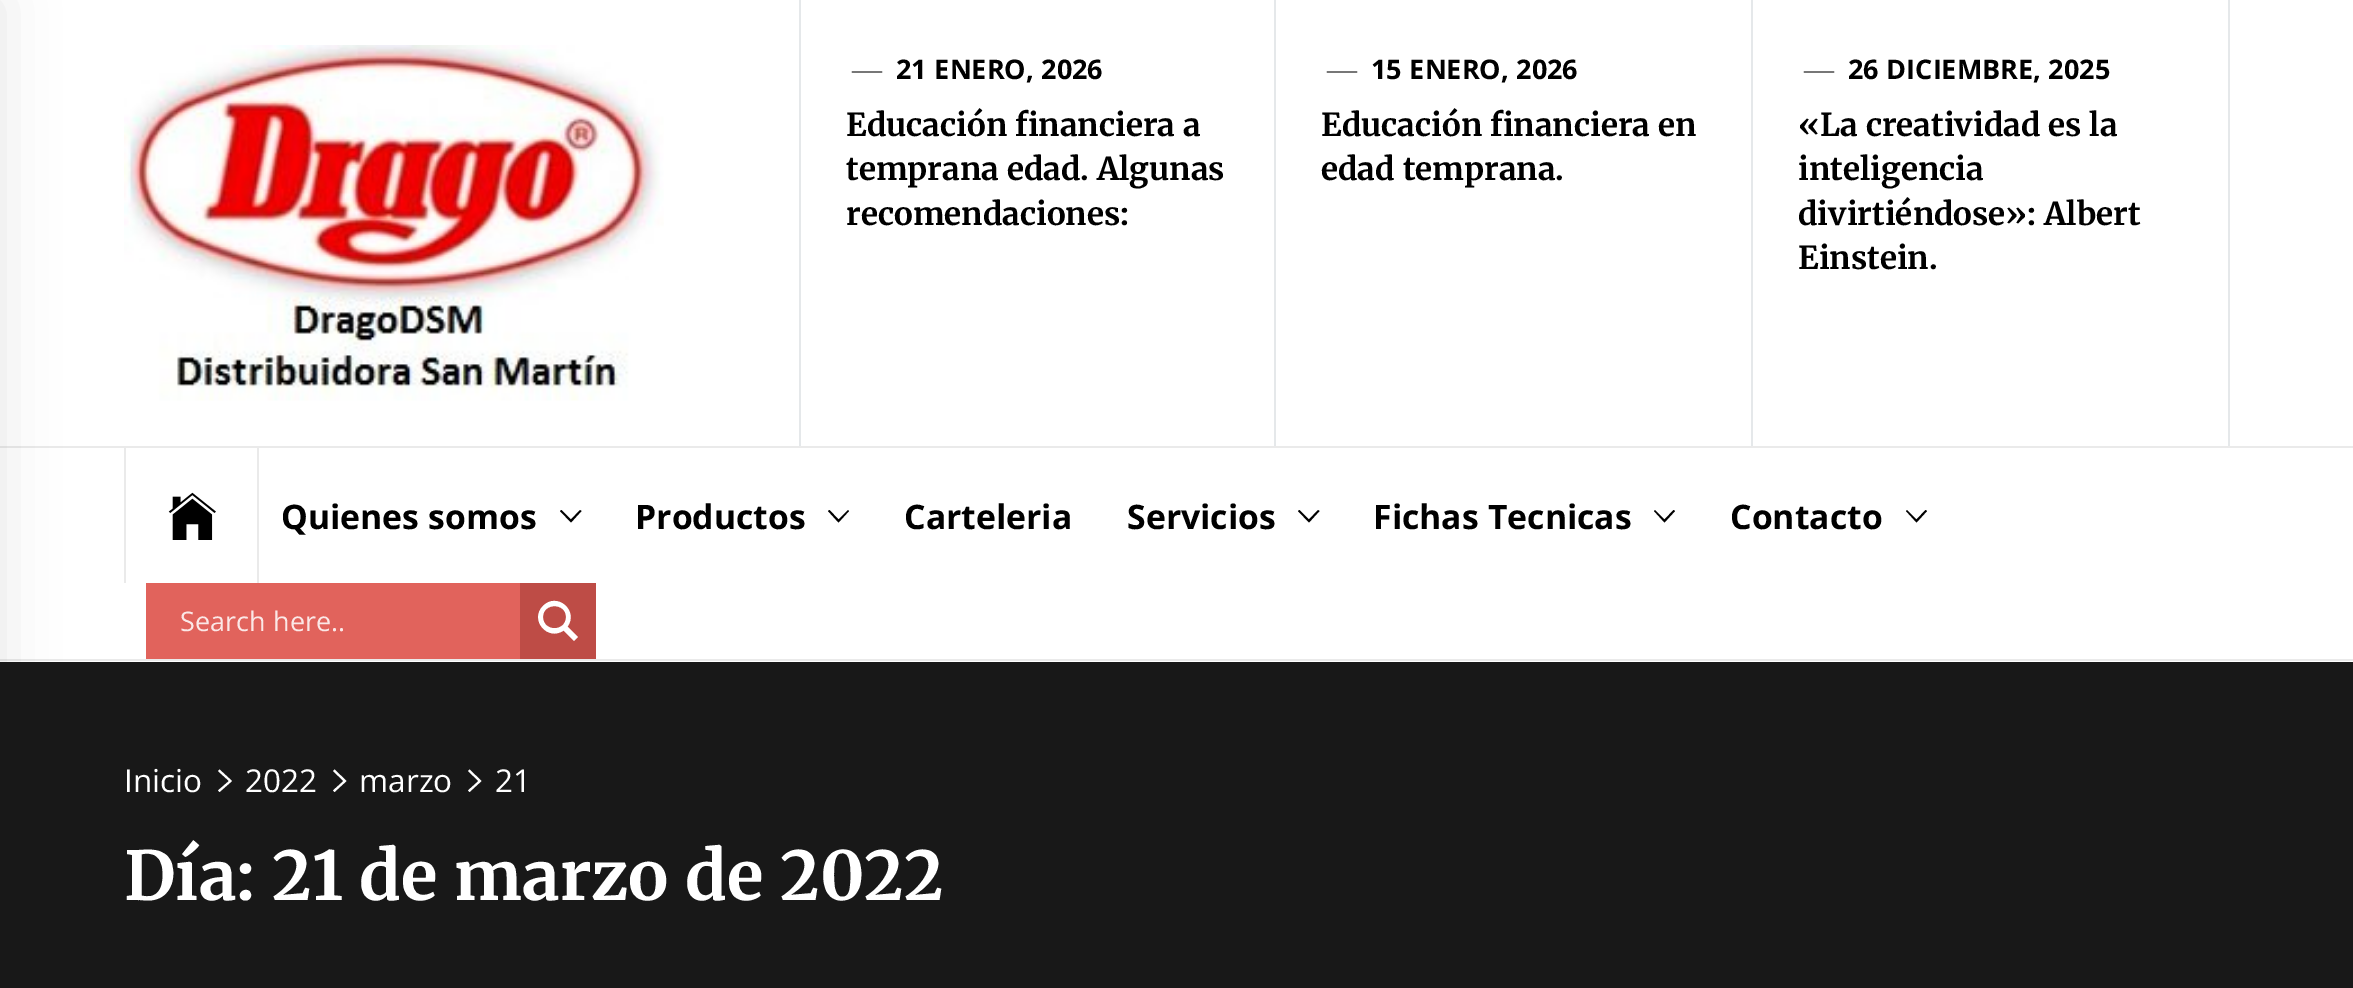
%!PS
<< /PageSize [2353 988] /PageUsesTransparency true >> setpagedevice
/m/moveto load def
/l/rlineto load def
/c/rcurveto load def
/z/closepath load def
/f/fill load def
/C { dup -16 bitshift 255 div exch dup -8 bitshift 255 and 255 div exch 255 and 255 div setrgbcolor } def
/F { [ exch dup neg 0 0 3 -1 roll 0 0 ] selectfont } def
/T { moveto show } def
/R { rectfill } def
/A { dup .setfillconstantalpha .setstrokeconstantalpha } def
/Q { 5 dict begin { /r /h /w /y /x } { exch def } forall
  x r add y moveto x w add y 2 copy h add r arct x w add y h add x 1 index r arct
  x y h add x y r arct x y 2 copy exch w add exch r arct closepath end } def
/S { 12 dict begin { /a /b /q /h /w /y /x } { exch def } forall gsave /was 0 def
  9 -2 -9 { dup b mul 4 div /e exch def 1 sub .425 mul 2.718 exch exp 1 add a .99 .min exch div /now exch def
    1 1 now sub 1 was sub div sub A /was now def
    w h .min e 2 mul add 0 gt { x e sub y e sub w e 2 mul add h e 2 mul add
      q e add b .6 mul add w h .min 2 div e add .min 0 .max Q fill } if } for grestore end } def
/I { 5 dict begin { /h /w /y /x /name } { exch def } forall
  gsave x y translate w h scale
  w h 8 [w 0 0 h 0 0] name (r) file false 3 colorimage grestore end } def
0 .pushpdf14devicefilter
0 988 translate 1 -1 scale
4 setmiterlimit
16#181818 C
0 0 2353 988 R
16#FFFFFF C
0 0 2353 662 R
16#EAEAEA C
0 446 2353 2 R
0 659 2353 2 R
16#000000 C
-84 0 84 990 0 28 .1 S
(1.rgb) 124 45 540 356 I
16#E5E8EA C
1274 0 2 446 R
799 0 2 446 R
/LiberationSerif-Bold 30 F
16#777777 C
(—) 852 79 T
/OpenSans-Bold 27 F
16#000000 C
896 79 m .5 0 32 (21 ENERO, 2026) widthshow
/Merriweather-Bold 31.5 F
846 136 m .5 0 32 (Educación financiera a) widthshow
846 180 m .5 0 32 (temprana edad. Algunas) widthshow
(recomendaciones:) 846 225 T
16#E5E8EA C
1751 0 2 446 R
/LiberationSerif-Bold 30 F
16#777777 C
(—) 1327 79 T
/OpenSans-Bold 27 F
16#000000 C
1371 79 m .5 0 32 (15 ENERO, 2026) widthshow
/Merriweather-Bold 31.5 F
1321 136 m .5 0 32 (Educación financiera en) widthshow
1321 180 m .5 0 32 (edad temprana.) widthshow
16#E5E8EA C
2228 0 2 446 R
/LiberationSerif-Bold 30 F
16#777777 C
(—) 1804 79 T
/OpenSans-Bold 27 F
16#000000 C
1848 79 m .5 0 32 (26 DICIEMBRE, 2025) widthshow
/Merriweather-Bold 31.5 F
1798 136 m .5 0 32 («La creatividad es la) widthshow
(inteligencia) 1798 180 T
1798 225 m .5 0 32 (divirtiéndose»: Albert) widthshow
(Einstein.) 1798 269 T
16#EAEAEA C
257 448 2 135 R
124 448 2 135 R
(2.rgb) 168 492 48 48 I
/OpenSans-Bold 33.75 F
16#000000 C
281 529 m .5 0 32 (Quienes somos) widthshow
580 510 m 1.5 1 l -10.5 11.5 l -11 -11.5 l 1.5 -1 l 9.5 9.5 l z f
(Productos) 635 529 T
848 510 m 1 1 l -10.5 11.5 l -10.5 -11.5 l 1.5 -1 l 9 9.5 l z f
(Carteleria) 904 529 T
(Servicios) 1127 529 T
1318 510 m 1.5 1 l -10.5 11.5 l -11 -11.5 l 1.5 -1 l 9.5 9.5 l z f
1373 529 m .5 0 32 (Fichas Tecnicas) widthshow
1673.5 510 m 1.5 1 l -10.5 11.5 l -10.5 -11.5 l 1 -1 l 9.5 9.5 l z f
(Contacto) 1730 529 T
1925.5 510 m 1.5 1 l -10.5 11.5 l -10.5 -11.5 l 1 -1 l 9.5 9.5 l z f
16#E1635C C
146 583 374 76 R
/OpenSans-Regular 27 F
16#FBE8E7 C
180 631 m 1 0 32 (Search here..) widthshow
16#BE4C46 C
520 583 76 76 R
16#FFFFFF C
578 637 m -10.5 -10.5 l 11.5 -15.5 -10.5 -35 -24.5 -20.5 c -14 14 5 35.5 20.5 24.5 c 10.5 10.5 l z 543 617 m 0 -14.5 23 -14.5 23 0 c 0 15 -23 15 -23 0 c z f
/OpenSans-Regular 31.5 F
(Inicio) 124 792 T
218 771 m 1.5 -1.5 l 12.5 11.5 l -12.5 11 l -1.5 -1.5 l 11 -9.5 l z f
(2022) 245 792 T
333 771 m 1.5 -1.5 l 12 11.5 l -12 11 l -1.5 -1.5 l 10.5 -9.5 l z f
(marzo) 359 792 T
468 771 m 1.5 -1.5 l 12 11.5 l -12 11 l -1.5 -1.5 l 10.5 -9.5 l z f
(21) 495 792 T
/Merriweather-Bold 67.5 F
(Día:) 124 900 T
272 900 m .5 0 32 (21 de marzo de 2022) widthshow
.poppdf14devicefilter showpage
